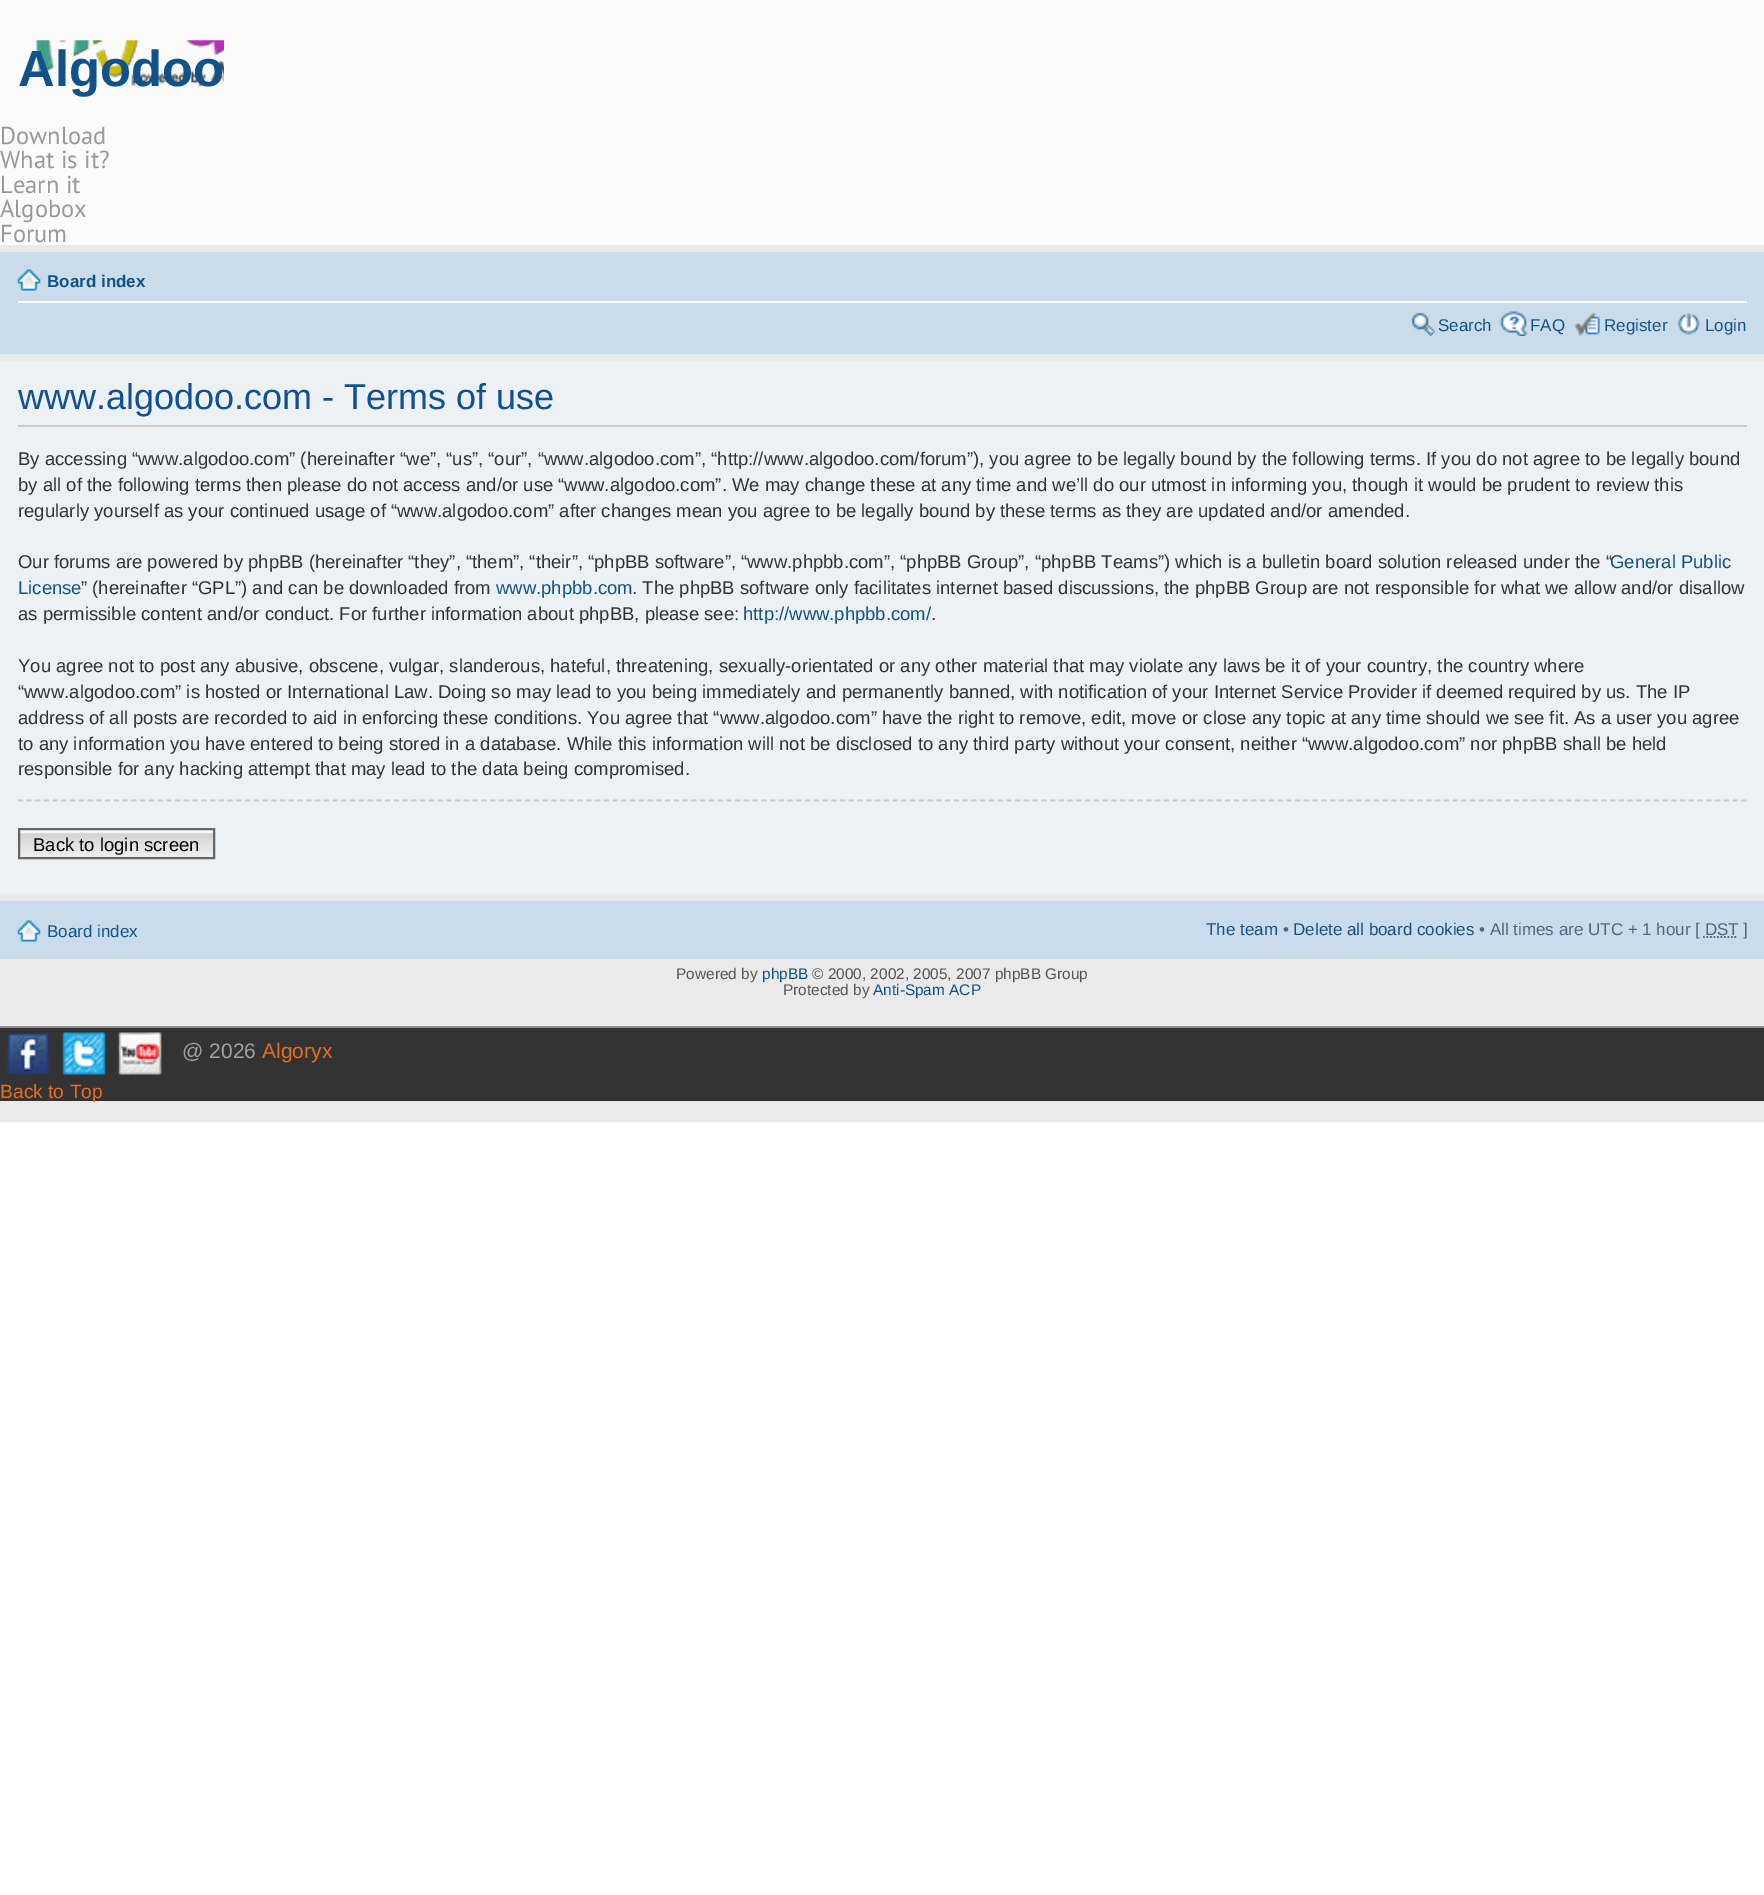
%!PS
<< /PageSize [1764 1895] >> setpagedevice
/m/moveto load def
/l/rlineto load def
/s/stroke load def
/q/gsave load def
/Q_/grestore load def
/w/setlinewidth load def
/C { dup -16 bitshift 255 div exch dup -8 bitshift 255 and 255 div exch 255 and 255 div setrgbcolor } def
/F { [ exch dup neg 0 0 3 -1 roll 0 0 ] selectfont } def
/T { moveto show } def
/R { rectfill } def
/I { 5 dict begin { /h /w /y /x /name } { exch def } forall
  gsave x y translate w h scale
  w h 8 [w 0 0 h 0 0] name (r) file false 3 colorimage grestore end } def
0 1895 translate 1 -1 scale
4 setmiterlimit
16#FFFFFF C
0 0 1764 1895 R
16#EAEAEA C
0 245 1764 877 R
16#F3F3F3 C
0 1025 1764 1 R
16#FBFBFB C
0 0 1764 245 R
(1.rgb) 35 40 189 47 I
/LiberationSans-Bold 50.75 F
16#105289 C
(Algodoo) 18 86 T
/PTSans-Regular 24.5 F
16#999999 C
(Download) 0 144 T
(What is it?) 0 168 T
(Learn it) 0 193 T
(Algobox) 0 217 T
(Forum) 0 242 T
16#CADCEB C
0 252 1764 102 R
16#FFFFFF C
18 301 1729 2 R
(2.rgb) 17 269 24 22 I
/LiberationSans-Bold 17 F
16#105289 C
(Board index) 47 287 T
(3.rgb) 1411 312 25 24 I
/LiberationSans-Regular 17 F
(Search) 1438 331 T
(4.rgb) 1499 311 29 25 I
(FAQ) 1530 331 T
(5.rgb) 1574 312 26 24 I
(Register) 1604 331 T
(6.rgb) 1677 313 23 22 I
(Login) 1705 331 T
16#ECF1F3 C
0 361 1764 533 R
16#CCCCCC C
18 425 1729 2 R
/LiberationSans-Regular 36 F
16#115098 C
(www.algodoo.com - Terms of use) 18 409 T
/LiberationSans-Regular 18.48 F
16#333333 C
(By accessing “www.algodoo.com” \(hereinafter “we”, “us”, “our”, “www.algodoo.com”, “http://www.algodoo.com/forum”\), you agree to be legally bound by the following terms. If you do not agree to be legally bound) 18 465 T
(by all of the following terms then please do not access and/or use “www.algodoo.com”. We may change these at any time and we’ll do our utmost in informing you, though it would be prudent to review this) 18 491 T
(regularly yourself as your continued usage of “www.algodoo.com” after changes mean you agree to be legally bound by these terms as they are updated and/or amended.) 18 517 T
(Our forums are powered by phpBB \(hereinafter “they”, “them”, “their”, “phpBB software”, “www.phpbb.com”, “phpBB Group”, “phpBB Teams”\) which is a bulletin board solution released under the “) 18 568 T
16#105289 C
(General Public) 1610 568 T
(License) 18 594 T
16#333333 C
(” \(hereinafter “GPL”\) and can be downloaded from) 81 594 T
16#105289 C
(www.phpbb.com) 496 594 T
16#333333 C
(. The phpBB software only facilitates internet based discussions, the phpBB Group are not responsible for what we allow and/or disallow) 632 594 T
(as permissible content and/or conduct. For further information about phpBB, please see:) 18 620 T
16#105289 C
(http://www.phpbb.com/) 743 620 T
16#333333 C
(.) 931 620 T
(You agree not to post any abusive, obscene, vulgar, slanderous, hateful, threatening, sexually-orientated or any other material that may violate any laws be it of your country, the country where) 18 672 T
(“www.algodoo.com” is hosted or International Law. Doing so may lead to you being immediately and permanently banned, with notification of your Internet Service Provider if deemed required by us. The IP) 18 698 T
(address of all posts are recorded to aid in enforcing these conditions. You agree that “www.algodoo.com” have the right to remove, edit, move or close any topic at any time should we see fit. As a user you agree) 18 724 T
(to any information you have entered to being stored in a database. While this information will not be disclosed to any third party without your consent, neither “www.algodoo.com” nor phpBB shall be held) 18 750 T
(responsible for any hacking attempt that may lead to the data being compromised.) 18 775 T
q
18 369 1729 517 rectclip
16#CCCCCC C
1.8 w
[5.25 3.5] 0 setdash
17.5 800.5 m 1729 0 l s
Q_
(7.rgb) 17 832 199 27 I
16#FAFAFA C
20 830 193 2 R
16#666666 C
2 w
19 829 195 29 rectstroke
16#000000 C
(Back to login screen) 33 851 T
16#CADCEB C
0 901 1764 58 R
(2.rgb) 17 920 24 22 I
/LiberationSans-Regular 17 F
16#105289 C
(Board index) 47 937 T
(The team) 1206 935 T
16#536482 C
(•) 1283 935 T
16#105289 C
(Delete all board cookies) 1293 935 T
16#536482 C
(• All times are UTC + 1 hour [ DST ]) 1479 935 T
1.8 w
[1.75 1.75] 0 setdash
1703 937 m 34 0 l s
/LiberationSans-Regular 15.4 F
16#555555 C
(Powered by) 676 979 T
16#105289 C
(phpBB) 762 979 T
16#555555 C
(© 2000, 2002, 2005, 2007 phpBB Group) 812 979 T
(Protected by) 783 995 T
16#105289 C
(Anti-Spam ACP) 873 995 T
16#333333 C
0 1028 1764 73 R
16#8E8E8E C
0 1026 1764 2 R
(8.rgb) 6 1032 44 43 I
(9.rgb) 62 1032 44 43 I
(10.rgb) 118 1032 44 43 I
/LiberationSans-Regular 21 F
16#A1A1A1 C
(@ 2026) 182 1058 T
16#E36E25 C
(Algoryx) 262 1058 T
/LiberationSans-Regular 19.25 F
(Back to Top) 0 1098 T
showpage
